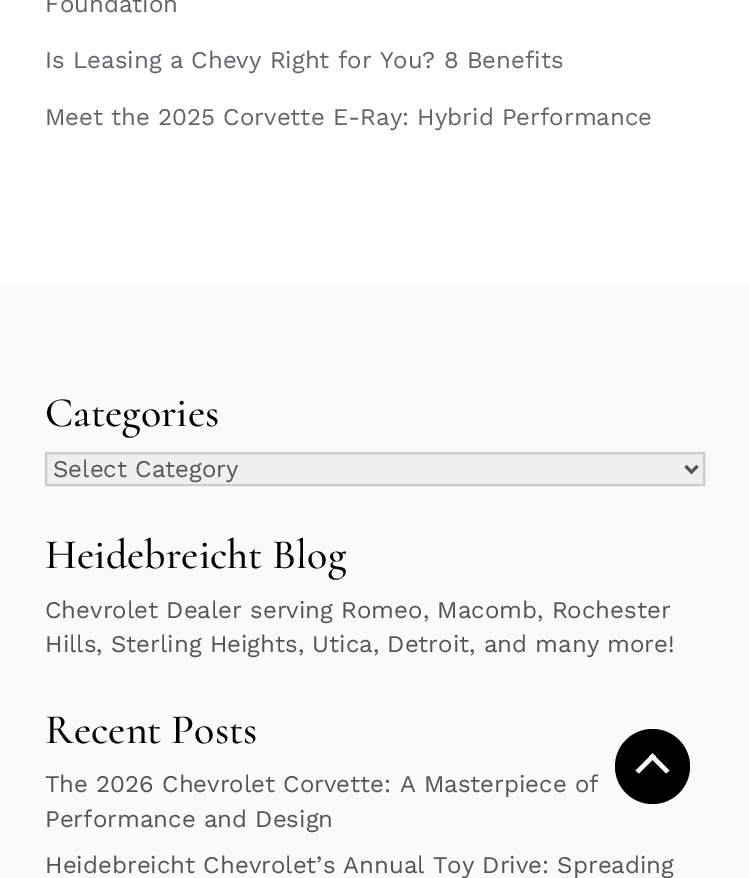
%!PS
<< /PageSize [749 878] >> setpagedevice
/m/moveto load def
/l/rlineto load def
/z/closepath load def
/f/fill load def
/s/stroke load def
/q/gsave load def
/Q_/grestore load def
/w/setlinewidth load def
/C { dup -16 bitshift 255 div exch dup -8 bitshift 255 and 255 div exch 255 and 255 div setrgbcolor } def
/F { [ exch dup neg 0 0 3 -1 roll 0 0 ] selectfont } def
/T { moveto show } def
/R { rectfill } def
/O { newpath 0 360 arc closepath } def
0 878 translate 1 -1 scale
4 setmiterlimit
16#FFFFFF C
0 0 749 878 R
/WorkSans-Regular 24 F
16#62646C C
(Foundation) 45 12 T
(Is Leasing a Chevy Right for You? 8 Benefits) 45 68 T
(Meet the 2025 Corvette E-Ray: Hybrid Performance) 45 125 T
16#FAFAFA C
0 285 749 593 R
/Cormorant-Medium 42 F
16#000000 C
(Categories) 45 426 T
16#EFEFEF C
46 453 m 658 0 l 0 32 l -658 0 l z q f Q_
16#CCCCCC C
2 w
s
16#555555 C
3 w
685.5 466 m 6 6 l 6 -6 l s
/WorkSans-Regular 24 F
(Select Category) 53 477 T
/Cormorant-Medium 42 F
16#000000 C
(Heidebreicht Blog) 45 568 T
/WorkSans-Regular 24 F
16#555555 C
(Chevrolet Dealer serving Romeo, Macomb, Rochester) 45 618 T
(Hills, Sterling Heights, Utica, Detroit, and many more!) 45 652 T
/Cormorant-Medium 42 F
16#000000 C
(Recent Posts) 45 743 T
/WorkSans-Regular 24 F
16#555555 C
(The 2026 Chevrolet Corvette: A Masterpiece of) 45 792 T
(Performance and Design) 45 827 T
(Heidebreicht Chevrolet’s Annual Toy Drive: Spreading) 45 873 T
16#000000 C
652.5 766.5 37.5 O f
16#FFFFFF C
649 756.5 m 3.5 -3 l 17 17 l -3.5 3 l z f
652.5 753.5 m 3.5 3 l -17 17 l -3.5 -3 l z f
showpage
